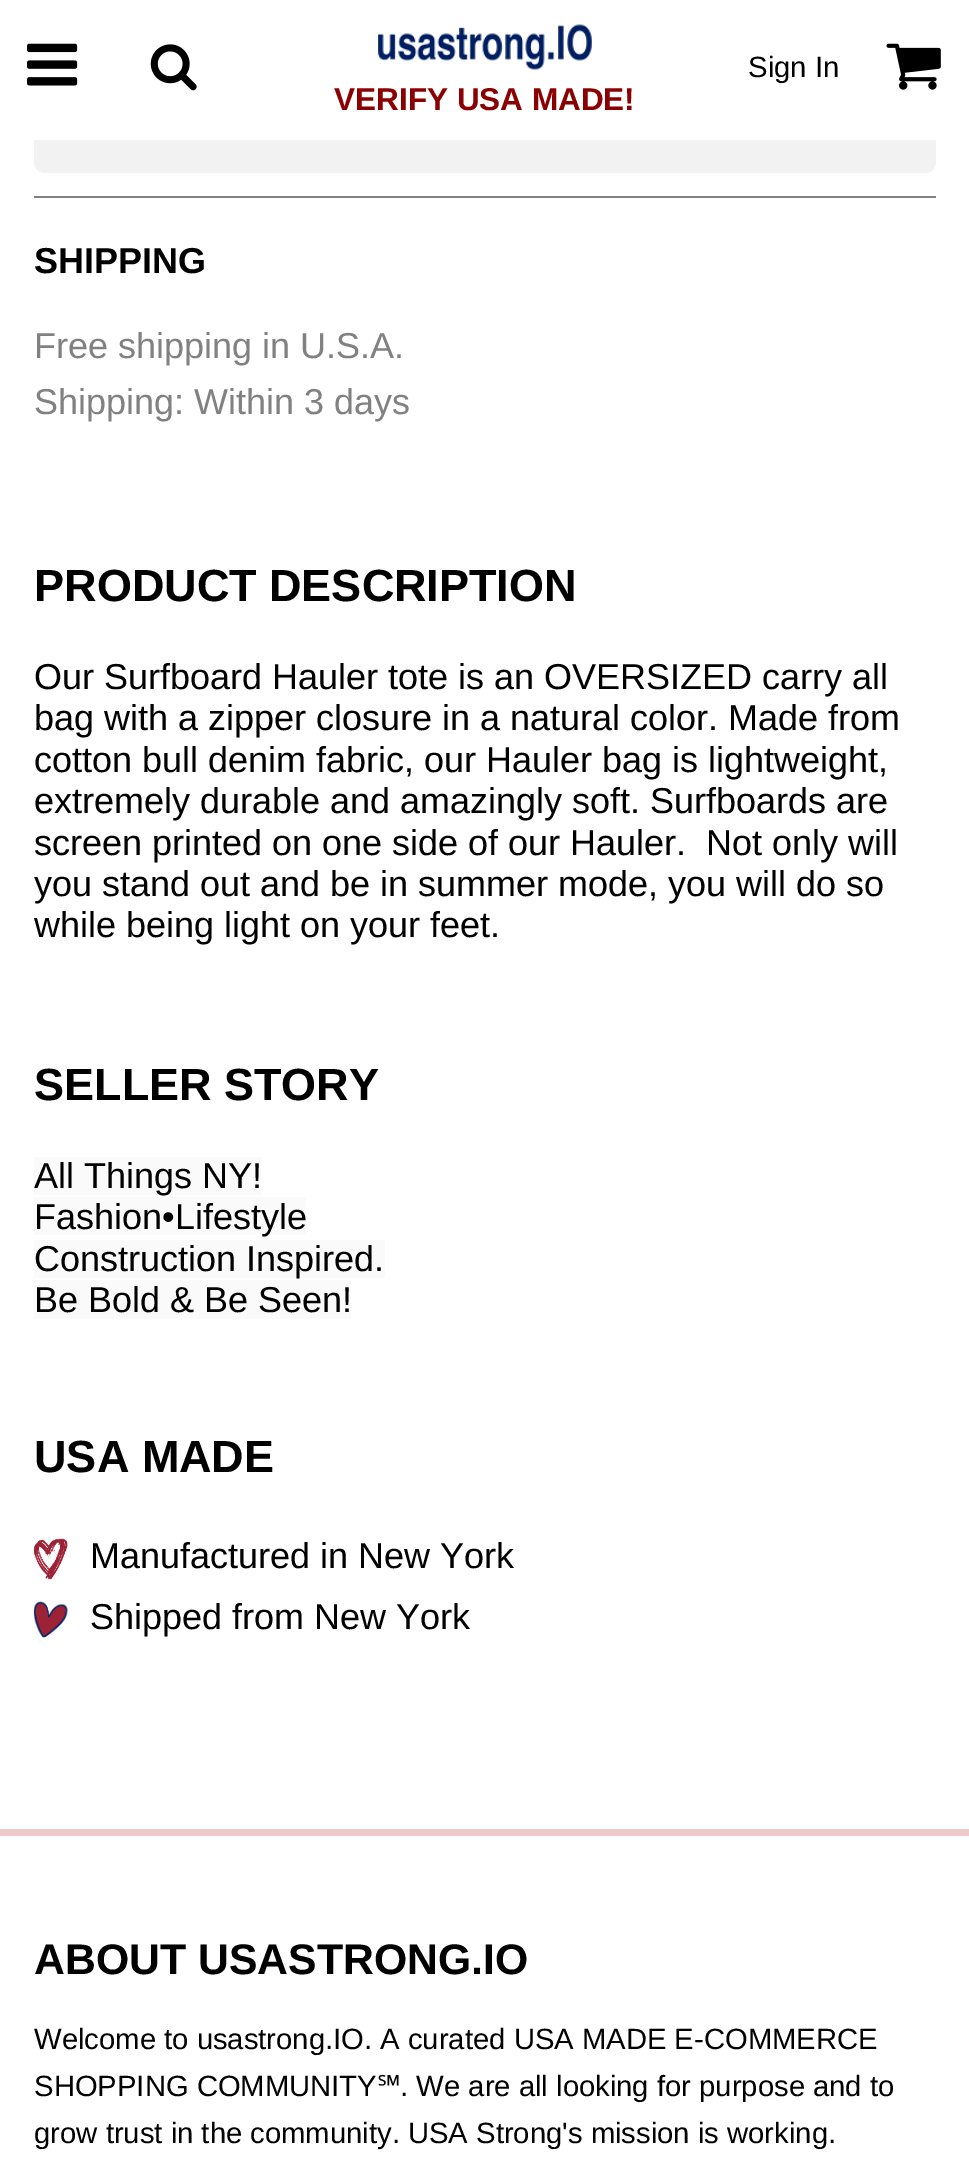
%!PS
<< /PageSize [969 2183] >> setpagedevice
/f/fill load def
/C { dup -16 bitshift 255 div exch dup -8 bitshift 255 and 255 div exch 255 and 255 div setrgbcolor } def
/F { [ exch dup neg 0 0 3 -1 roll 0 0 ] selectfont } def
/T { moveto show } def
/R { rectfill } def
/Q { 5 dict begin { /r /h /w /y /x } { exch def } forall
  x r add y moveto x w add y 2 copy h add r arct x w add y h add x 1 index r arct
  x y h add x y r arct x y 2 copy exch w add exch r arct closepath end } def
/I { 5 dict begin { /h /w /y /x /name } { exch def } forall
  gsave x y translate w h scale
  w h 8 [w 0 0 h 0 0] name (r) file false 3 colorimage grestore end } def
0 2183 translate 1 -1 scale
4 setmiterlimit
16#FFFFFF C
0 0 969 2183 R
16#F2F2F2 C
34 74 902 99 11 Q f
16#FFFFFF C
34 74 902 66 R
(1.rgb) 27 43 51 43 I
(2.rgb) 150 44 47 47 I
/LiberationSans-Regular 29.25 F
16#000000 C
(Sign In) 748 77 T
(3.rgb) 886 43 55 47 I
(4.rgb) 378 24 214 46 I
/LiberationSans-Bold 31.5 F
16#8B0000 C
(VERIFY USA MADE!) 334 110 T
16#818181 C
34 196 902 2 R
/LiberationSans-Bold 36 F
16#000000 C
(SHIPPING) 34 273 T
/LiberationSans-Regular 36 F
16#818181 C
(Free shipping in U.S.A.) 34 358 T
(Shipping: Within 3 days) 34 414 T
/LiberationSans-Bold 45 F
16#000000 C
(PRODUCT DESCRIPTION) 34 601 T
/LiberationSans-Regular 36 F
(Our Surfboard Hauler tote is an OVERSIZED carry all) 34 689 T
(bag with a zipper closure in a natural color. Made from) 34 730 T
(cotton bull denim fabric, our Hauler bag is lightweight,) 34 772 T
(extremely durable and amazingly soft. Surfboards are) 34 813 T
(screen printed on one side of our Hauler.  Not only will) 34 855 T
(you stand out and be in summer mode, you will do so) 34 896 T
(while being light on your feet.) 34 937 T
/LiberationSans-Bold 45 F
(SELLER STORY) 34 1100 T
16#FAFAFA C
34 1157 227 38 R
/LiberationSans-Regular 36 F
16#000000 C
(All Things NY!) 34 1188 T
16#FAFAFA C
34 1197 272 38 R
16#000000 C
(Fashion•Lifestyle) 34 1229 T
16#FAFAFA C
34 1240 351 38 R
16#000000 C
(Construction Inspired.) 34 1271 T
16#FAFAFA C
34 1280 317 39 R
16#000000 C
(Be Bold & Be Seen!) 34 1312 T
/LiberationSans-Bold 45 F
(USA MADE) 34 1472 T
(5.rgb) 33 1538 35 42 I
/LiberationSans-Regular 36 F
(Manufactured in New York) 90 1568 T
(6.rgb) 33 1601 35 37 I
(Shipped from New York) 90 1629 T
16#F0C9CA C
0 1829 969 7 R
/LiberationSans-Bold 42.75 F
16#000000 C
(ABOUT USASTRONG.IO) 34 1974 T
/LiberationSans-Regular 29.25 F
(Welcome to usastrong.IO. A curated USA MADE E-COMMERCE) 34 2049 T
(SHOPPING COMMUNITY) 34 2096 T
/NotoSans-Regular 29.25 F
(℠) 377 2096 T
/LiberationSans-Regular 29.25 F
(. We are all looking for purpose and to) 400 2096 T
(grow trust in the community. USA Strong's mission is working.) 34 2143 T
showpage
